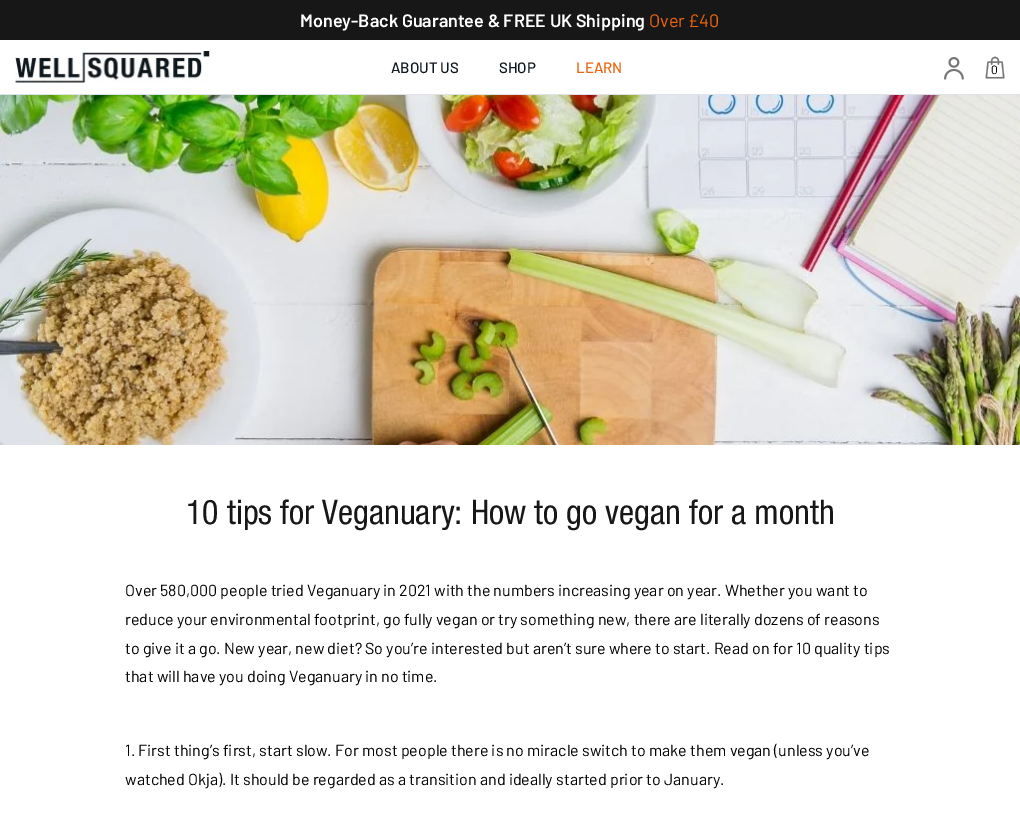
%!PS
<< /PageSize [1020 817] >> setpagedevice
/C { dup -16 bitshift 255 div exch dup -8 bitshift 255 and 255 div exch 255 and 255 div setrgbcolor } def
/F { [ exch dup neg 0 0 3 -1 roll 0 0 ] selectfont } def
/T { moveto show } def
/R { rectfill } def
/I { 5 dict begin { /h /w /y /x /name } { exch def } forall
  gsave x y translate w h scale
  w h 8 [w 0 0 h 0 0] name (r) file false 3 colorimage grestore end } def
0 817 translate 1 -1 scale
4 setmiterlimit
16#FFFFFF C
0 0 1020 817 R
16#171717 C
0 0 1020 40 R
/Barlow-SemiBold 18 F
16#FFFFFF C
(Money-Back Guarantee & FREE UK Shipping) 300 27 T
/Barlow-Regular 18 F
16#ED650D C
(Over £40) 649 27 T
16#DFE3E8 C
0 94 1020 1 R
(1.rgb) 15 51 195 32 I
/Barlow-Medium 15 F
16#0E171D C
(ABOUT US) 391 73 T
(SHOP) 499 73 T
16#ED650D C
(LEARN) 576 73 T
(2.rgb) 944 57 20 23 I
(3.rgb) 985 56 20 23 I
/Barlow-Regular 12 F
16#000000 C
(0) 991 74 T
(4.rgb) 0 95 1020 350 I
/HelveticaNeue-Italic 34 F
16#171717 C
(10 tips for Veganuary: How to go vegan for a month) 186 524 T
/Barlow-Regular 16 F
16#000000 C
(Over 580,000 people tried Veganuary in 2021 with the numbers increasing year on year. Whether you want to) 125 596 T
(reduce your environmental footprint, go fully vegan or try something new, there are literally dozens of reasons) 125 625 T
(to give it a go. New year, new diet? So you’re interested but aren’t sure where to start. Read on for 10 quality tips) 125 654 T
(that will have you doing Veganuary in no time.) 125 682 T
(1. First thing’s first, start slow. For most people there is no miracle switch to make them vegan \(unless you’ve) 125 756 T
(watched Okja\). It should be regarded as a transition and ideally started prior to January.) 125 785 T
showpage
